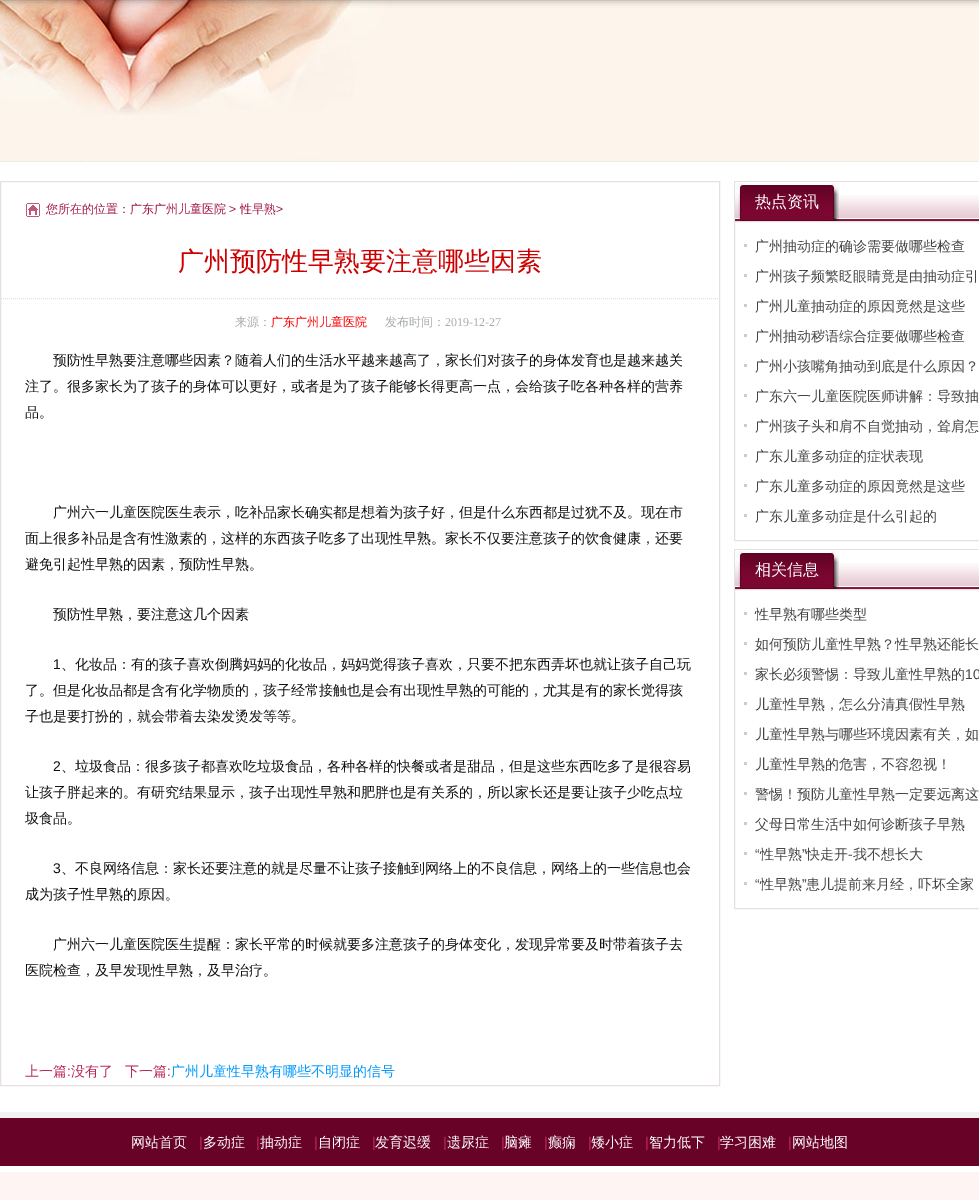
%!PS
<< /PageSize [979 1200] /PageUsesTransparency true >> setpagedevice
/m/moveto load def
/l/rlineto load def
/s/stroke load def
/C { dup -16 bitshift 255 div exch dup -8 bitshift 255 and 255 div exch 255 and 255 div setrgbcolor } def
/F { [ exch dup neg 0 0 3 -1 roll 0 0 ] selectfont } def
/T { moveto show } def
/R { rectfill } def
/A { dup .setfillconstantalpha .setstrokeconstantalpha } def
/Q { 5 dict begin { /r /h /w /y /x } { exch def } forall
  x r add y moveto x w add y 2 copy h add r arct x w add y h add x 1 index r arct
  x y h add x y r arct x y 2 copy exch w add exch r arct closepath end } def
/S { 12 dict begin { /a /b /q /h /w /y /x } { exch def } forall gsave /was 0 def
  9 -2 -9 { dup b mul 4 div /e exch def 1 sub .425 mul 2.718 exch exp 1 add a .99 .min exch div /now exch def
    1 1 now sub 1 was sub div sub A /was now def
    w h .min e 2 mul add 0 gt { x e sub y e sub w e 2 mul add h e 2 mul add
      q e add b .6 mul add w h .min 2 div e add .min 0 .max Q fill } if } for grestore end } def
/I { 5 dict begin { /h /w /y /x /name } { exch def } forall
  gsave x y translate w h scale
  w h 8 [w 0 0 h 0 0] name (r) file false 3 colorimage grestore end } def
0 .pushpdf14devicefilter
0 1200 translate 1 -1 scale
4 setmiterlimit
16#FFFFFF C
0 0 979 1200 R
(1.rgb) 0 0 979 162 I
16#000000 C
0 -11 979 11 0 3.5 .4 S
16#E6E0DE C
.5 181.5 719 904 rectstroke
(2.rgb) 26 203 14 14 I
/WenQuanYiZenHei-Medium 12 F
16#A11748 C
(您所在的位置：广东广州儿童医院) 46 213 T
/LiberationSans-Regular 12 F
(>) 229 213 T
/WenQuanYiZenHei-Medium 12 F
(性早熟) 240 213 T
/LiberationSans-Regular 12 F
(>) 276 213 T
/WenQuanYiZenHei-Medium 26 F
16#CC0000 C
(广州预防性早熟要注意哪些因素) 178 270 T
16#E6E0DE C
[1 1] 0 setdash
1 298.5 m 718 0 l s
/WenQuanYiZenHei-Medium 12 F
16#A6ABAF C
(来源：) 235 326 T
16#FF0000 C
(广东广州儿童医院) 271 326 T
16#A6ABAF C
(发布时间：) 385 326 T
/LiberationSerif-Regular 12 F
(2019-12-27) 445 326 T
/WenQuanYiZenHei-Medium 14 F
16#111111 C
(预防性早熟要注意哪些因素？随着人们的生活水平越来越高了，家长们对孩子的身体发育也是越来越关) 53 365 T
(注了。很多家长为了孩子的身体可以更好，或者是为了孩子能够长得更高一点，会给孩子吃各种各样的营养) 25 391 T
(品。) 25 417 T
(广州六一儿童医院医生表示，吃补品家长确实都是想着为孩子好，但是什么东西都是过犹不及。现在市) 53 517 T
(面上很多补品是含有性激素的，这样的东西孩子吃多了出现性早熟。家长不仅要注意孩子的饮食健康，还要) 25 543 T
(避免引起性早熟的因素，预防性早熟。) 25 569 T
(预防性早熟，要注意这几个因素) 53 619 T
/LiberationSans-Regular 14 F
(1) 53 669 T
/WenQuanYiZenHei-Medium 14 F
(、化妆品：有的孩子喜欢倒腾妈妈的化妆品，妈妈觉得孩子喜欢，只要不把东西弄坏也就让孩子自己玩) 61 669 T
(了。但是化妆品都是含有化学物质的，孩子经常接触也是会有出现性早熟的可能的，尤其是有的家长觉得孩) 25 695 T
(子也是要打扮的，就会带着去染发烫发等等。) 25 721 T
/LiberationSans-Regular 14 F
(2) 53 771 T
/WenQuanYiZenHei-Medium 14 F
(、垃圾食品：很多孩子都喜欢吃垃圾食品，各种各样的快餐或者是甜品，但是这些东西吃多了是很容易) 61 771 T
(让孩子胖起来的。有研究结果显示，孩子出现性早熟和肥胖也是有关系的，所以家长还是要让孩子少吃点垃) 25 797 T
(圾食品。) 25 823 T
/LiberationSans-Regular 14 F
(3) 53 873 T
/WenQuanYiZenHei-Medium 14 F
(、不良网络信息：家长还要注意的就是尽量不让孩子接触到网络上的不良信息，网络上的一些信息也会) 61 873 T
(成为孩子性早熟的原因。) 25 899 T
(广州六一儿童医院医生提醒：家长平常的时候就要多注意孩子的身体变化，发现异常要及时带着孩子去) 53 949 T
(医院检查，及早发现性早熟，及早治疗。) 25 975 T
16#B82659 C
(上一篇) 25 1076 T
/LiberationSans-Regular 14 F
(:) 67 1076 T
/WenQuanYiZenHei-Medium 14 F
(没有了) 71 1076 T
(下一篇) 125 1076 T
/LiberationSans-Regular 14 F
(:) 167 1076 T
/WenQuanYiZenHei-Medium 14 F
16#0099FF C
(广州儿童性早熟有哪些不明显的信号) 171 1076 T
(3.rgb) 839 195 140 26 I
16#E6E0DE C
734 181 245 1 R
734 181 1 40 R
(4.rgb) 743 182 96 39 I
(5.rgb) 735 182 8 39 I
/WenQuanYiZenHei-Medium 16 F
16#FFFFFF C
(热点资讯) 755 207 T
16#E6E0DE C
[] 0 setdash
734.5 221.5 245 319 rectstroke
16#CCCCCC C
744 244 3 3 R
/WenQuanYiZenHei-Medium 14 F
16#444444 C
(广州抽动症的确诊需要做哪些检查) 755 251 T
16#CCCCCC C
744 274 3 3 R
16#444444 C
(广州孩子频繁眨眼睛竟是由抽动症引) 755 281 T
16#CCCCCC C
744 304 3 3 R
16#444444 C
(广州儿童抽动症的原因竟然是这些) 755 311 T
16#CCCCCC C
744 334 3 3 R
16#444444 C
(广州抽动秽语综合症要做哪些检查) 755 341 T
16#CCCCCC C
744 364 3 3 R
16#444444 C
(广州小孩嘴角抽动到底是什么原因？) 755 371 T
16#CCCCCC C
744 394 3 3 R
16#444444 C
(广东六一儿童医院医师讲解：导致抽) 755 401 T
16#CCCCCC C
744 424 3 3 R
16#444444 C
(广州孩子头和肩不自觉抽动，耸肩怎) 755 431 T
16#CCCCCC C
744 454 3 3 R
16#444444 C
(广东儿童多动症的症状表现) 755 461 T
16#CCCCCC C
744 484 3 3 R
16#444444 C
(广东儿童多动症的原因竟然是这些) 755 491 T
16#CCCCCC C
744 514 3 3 R
16#444444 C
(广东儿童多动症是什么引起的) 755 521 T
(3.rgb) 839 563 140 26 I
16#E6E0DE C
734 549 245 1 R
734 549 1 40 R
(4.rgb) 743 550 96 39 I
(5.rgb) 735 550 8 39 I
/WenQuanYiZenHei-Medium 16 F
16#FFFFFF C
(相关信息) 755 575 T
16#E6E0DE C
734.5 589.5 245 319 rectstroke
16#CCCCCC C
744 612 3 3 R
/WenQuanYiZenHei-Medium 14 F
16#444444 C
(性早熟有哪些类型) 755 619 T
16#CCCCCC C
744 642 3 3 R
16#444444 C
(如何预防儿童性早熟？性早熟还能长) 755 649 T
16#CCCCCC C
744 672 3 3 R
16#444444 C
(家长必须警惕：导致儿童性早熟的) 755 679 T
/LiberationSans-Regular 14 F
(10) 965 679 T
16#CCCCCC C
744 702 3 3 R
/WenQuanYiZenHei-Medium 14 F
16#444444 C
(儿童性早熟，怎么分清真假性早熟) 755 709 T
16#CCCCCC C
744 732 3 3 R
16#444444 C
(儿童性早熟与哪些环境因素有关，如) 755 739 T
16#CCCCCC C
744 762 3 3 R
16#444444 C
(儿童性早熟的危害，不容忽视！) 755 769 T
16#CCCCCC C
744 792 3 3 R
16#444444 C
(警惕！预防儿童性早熟一定要远离这) 755 799 T
16#CCCCCC C
744 822 3 3 R
16#444444 C
(父母日常生活中如何诊断孩子早熟) 755 829 T
/LiberationSans-Regular 14 F
(“) 755 859 T
/WenQuanYiZenHei-Medium 14 F
(性早熟) 760 859 T
/LiberationSans-Regular 14 F
(”) 802 859 T
/WenQuanYiZenHei-Medium 14 F
(快走开) 806 859 T
(我不想长大) 853 859 T
16#CCCCCC C
744 852 3 3 R
/LiberationSans-Regular 14 F
16#444444 C
(-) 848 859 T
(“) 755 889 T
/WenQuanYiZenHei-Medium 14 F
(性早熟) 760 889 T
/LiberationSans-Regular 14 F
(”) 802 889 T
/WenQuanYiZenHei-Medium 14 F
(患儿提前来月经，吓坏全家) 806 889 T
16#CCCCCC C
744 882 3 3 R
16#680226 C
0 1118 979 48 R
16#F1F1F1 C
0 1112 979 6 R
16#FFFFFF C
(网站首页) 131 1147 T
/LiberationSans-Regular 14 F
16#B82659 C
(|) 199 1147 T
/WenQuanYiZenHei-Medium 14 F
16#FFFFFF C
(多动症) 203 1147 T
/LiberationSans-Regular 14 F
16#B82659 C
(|) 256 1147 T
/WenQuanYiZenHei-Medium 14 F
16#FFFFFF C
(抽动症) 260 1147 T
/LiberationSans-Regular 14 F
16#B82659 C
(|) 314 1147 T
/WenQuanYiZenHei-Medium 14 F
16#FFFFFF C
(自闭症) 318 1147 T
/LiberationSans-Regular 14 F
16#B82659 C
(|) 372 1147 T
/WenQuanYiZenHei-Medium 14 F
16#FFFFFF C
(发育迟缓) 375 1147 T
/LiberationSans-Regular 14 F
16#B82659 C
(|) 443 1147 T
/WenQuanYiZenHei-Medium 14 F
16#FFFFFF C
(遗尿症) 447 1147 T
/LiberationSans-Regular 14 F
16#B82659 C
(|) 501 1147 T
/WenQuanYiZenHei-Medium 14 F
16#FFFFFF C
(脑瘫) 504 1147 T
/LiberationSans-Regular 14 F
16#B82659 C
(|) 544 1147 T
/WenQuanYiZenHei-Medium 14 F
16#FFFFFF C
(癫痫) 548 1147 T
/LiberationSans-Regular 14 F
16#B82659 C
(|) 588 1147 T
/WenQuanYiZenHei-Medium 14 F
16#FFFFFF C
(矮小症) 591 1147 T
/LiberationSans-Regular 14 F
16#B82659 C
(|) 645 1147 T
/WenQuanYiZenHei-Medium 14 F
16#FFFFFF C
(智力低下) 649 1147 T
/LiberationSans-Regular 14 F
16#B82659 C
(|) 717 1147 T
/WenQuanYiZenHei-Medium 14 F
16#FFFFFF C
(学习困难) 720 1147 T
/LiberationSans-Regular 14 F
16#B82659 C
(|) 788 1147 T
/WenQuanYiZenHei-Medium 14 F
16#FFFFFF C
(网站地图) 792 1147 T
16#FFF4F4 C
0 1172 979 28 R
.poppdf14devicefilter showpage
